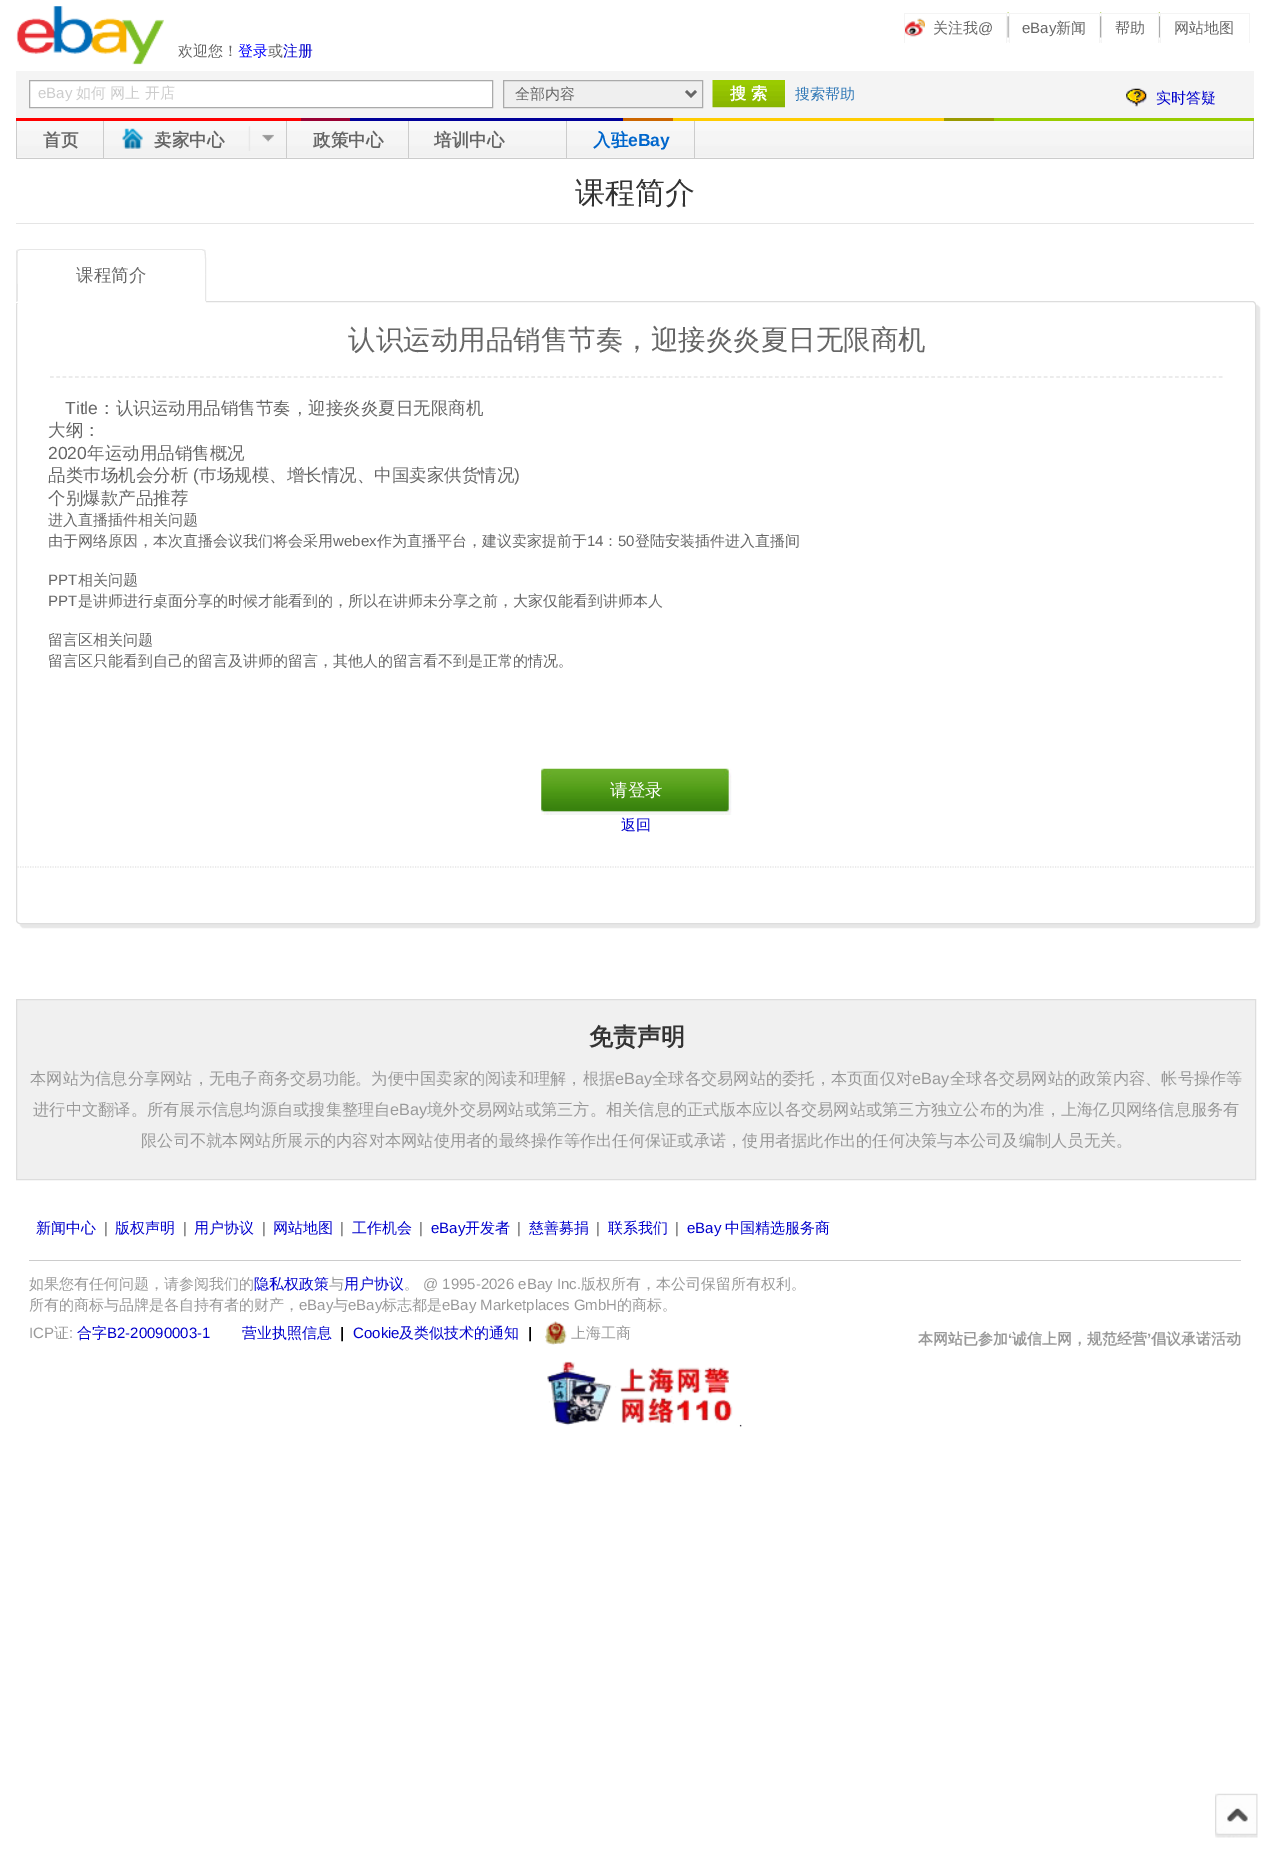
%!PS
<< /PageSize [1270 1849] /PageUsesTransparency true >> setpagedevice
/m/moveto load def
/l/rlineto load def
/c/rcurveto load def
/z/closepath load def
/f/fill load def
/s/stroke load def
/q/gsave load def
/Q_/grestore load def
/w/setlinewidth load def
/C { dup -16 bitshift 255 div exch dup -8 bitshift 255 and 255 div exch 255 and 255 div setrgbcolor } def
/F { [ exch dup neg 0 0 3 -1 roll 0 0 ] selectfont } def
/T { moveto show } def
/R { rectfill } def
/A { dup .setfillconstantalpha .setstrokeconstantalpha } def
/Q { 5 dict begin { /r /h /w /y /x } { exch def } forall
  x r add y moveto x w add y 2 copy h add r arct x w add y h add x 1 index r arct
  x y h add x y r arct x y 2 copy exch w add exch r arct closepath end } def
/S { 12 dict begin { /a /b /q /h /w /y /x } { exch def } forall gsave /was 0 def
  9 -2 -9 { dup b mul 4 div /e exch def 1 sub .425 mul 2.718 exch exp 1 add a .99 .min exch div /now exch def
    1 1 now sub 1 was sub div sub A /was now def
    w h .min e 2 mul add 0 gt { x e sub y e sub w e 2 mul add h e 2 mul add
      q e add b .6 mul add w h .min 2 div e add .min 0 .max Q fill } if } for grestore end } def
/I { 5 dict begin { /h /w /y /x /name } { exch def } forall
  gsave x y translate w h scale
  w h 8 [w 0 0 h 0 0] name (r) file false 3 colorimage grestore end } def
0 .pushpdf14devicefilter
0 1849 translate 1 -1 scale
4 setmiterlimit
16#FFFFFF C
0 0 1270 1849 R
(1.rgb) 905 18 20 19 I
16#F4F4F4 C
904 13 106 1 R
1009 13 1 30 R
904 13 1 30 R
/WenQuanYiZenHei-Medium 15 F
16#666666 C
(关注我) 933 33 T
/LiberationSans-Regular 15 F
(@) 978 33 T
(2.rgb) 1007 12 2 30 I
16#F4F4F4 C
1006 13 97 1 R
1101 13 1 30 R
1006 13 1 30 R
16#666666 C
(eBay) 1022 33 T
/WenQuanYiZenHei-Medium 15 F
(新闻) 1056 33 T
(3.rgb) 1100 12 2 31 I
16#F4F4F4 C
1099 13 62 1 R
1160 13 1 30 R
1099 13 1 30 R
16#666666 C
(帮助) 1115 33 T
(4.rgb) 1158 12 2 31 I
16#F4F4F4 C
1158 13 92 1 R
1249 13 1 30 R
1158 13 1 30 R
16#666666 C
(网站地图) 1174 33 T
(5.rgb) 16 6 148 59 I
(欢迎您！) 178 56 T
16#0000FF C
(登录) 238 56 T
16#666666 C
(或) 268 56 T
16#0000CC C
(注册) 283 56 T
16#F4F4F4 C
16 71 1238 47 R
16#FFFFFF C
29.5 80.5 m 463 0 l 0 27 l -463 0 l z q f Q_
16#AAAAAA C
s
/LiberationSans-Regular 15 F
16#CCCCCC C
(eBay) 38 98 T
/WenQuanYiZenHei-Medium 15 F
(如何 网上 开店) 76 98 T
16#EFEFEF C
503.5 80.5 m 199 0 l 0 27 l -199 0 l z q f Q_
16#AAAAAA C
s
16#666666 C
2.5 w
686 91 m 5 5 l 5 -5 l s
(全部内容) 515 99 T
(6.rgb) 712 80 73 28 I
/WenQuanYiZenHei-Bold 16.25 F
16#FFFFFF C
(搜) 730 99 T
(索) 751 99 T
/WenQuanYiZenHei-Medium 15 F
16#337AB7 C
(搜索帮助) 795 99 T
(7.rgb) 1126 88 21 19 I
16#0000CC C
(实时答疑) 1156 103 T
16#CCCCCC C
1253 120 1 39 R
16 158 1238 1 R
16 120 1 39 R
(8.rgb) 17 121 1236 37 I
103 120 1 38 R
286 120 1 38 R
16#FF0000 C
16 118 285 3 R
16#990033 C
301 118 49 3 R
16#CCCCCC C
408 120 1 38 R
566 120 1 38 R
16#000099 C
350 118 273 3 R
16#CC6600 C
623 118 50 3 R
16#CCCCCC C
694 120 1 38 R
16#FFCC00 C
673 118 271 3 R
16#999900 C
944 118 50 3 R
16#99CC00 C
994 118 260 3 R
/WenQuanYiZenHei-Bold 17.5 F
16#666666 C
(首页) 43 146 T
(9.rgb) 248 126 26 25 I
(10.rgb) 122 128 21 21 I
(卖家中心) 154 146 T
(政策中心) 313 146 T
(培训中心) 434 146 T
16#0066CC C
(入驻) 593 146 T
/LiberationSans-Bold 17.5 F
(eBay) 628 146 T
16#E5E5E5 C
16 223 1238 1 R
/WenQuanYiZenHei-Medium 30 F
16#333333 C
(课程简介) 575 203 T
16#E6E6E6 C
20 305 1240 623 4 .5 1 S
16#FFFFFF C
16.5 301.5 1239 622 3.5 Q q f Q_
16#DDDDDD C
1 w
s
16#FFFFFF C
20 249 m 182 0 l 2 0 4 2 4 4 c 0 50 l -190 0 l 0 -50 l 0 -2 2 -4 4 -4 c z f
16#E7E7E7 C
20 249 m -3 1 l 1 1 l 2 -1 l 182 0 l 2 1 l 1 -1 l -3 -1 l z f
205 301 m 1 1 l 0 -6 1 -51 -1 -52 c -1 1 l 2 1 1 44 1 50 c z f
16#FFFFFF C
206 302 m -189 0 l 1 -1 l 187 0 l z f
16#E7E7E7 C
16 251 m 1 -1 l 1 1 l -1 2 0 44 0 50 c -2 1 l z f
/WenQuanYiZenHei-Medium 17.5 F
16#666666 C
(课程简介) 76 281 T
16#E5E5E5 C
1.2 w
[3.75 2.5] 0 setdash
50 377 m 1172.5 0 l s
/WenQuanYiZenHei-Medium 27.5 F
16#666666 C
(认识运动用品销售节奏，迎接炎炎夏日无限商机) 348 349 T
/LiberationSans-Regular 17.5 F
(Title) 65 414 T
/WenQuanYiZenHei-Medium 17.5 F
(：认识运动用品销售节奏，迎接炎炎夏日无限商机) 98 414 T
(大纲：) 48 436 T
/LiberationSans-Regular 17.5 F
(2020) 48 459 T
/WenQuanYiZenHei-Medium 17.5 F
(年运动用品销售概况) 87 459 T
(品类巿场机会分析) 48 481 T
/LiberationSans-Regular 17.5 F
(\() 193 481 T
/WenQuanYiZenHei-Medium 17.5 F
(巿场规模、增长情况、中国卖家供货情况) 199 481 T
/LiberationSans-Regular 17.5 F
(\)) 514 481 T
/WenQuanYiZenHei-Medium 17.5 F
(个别爆款产品推荐) 48 504 T
/WenQuanYiZenHei-Medium 15 F
(进入直播插件相关问题) 48 525 T
(由于网络原因，本次直播会议我们将会采用) 48 546 T
/LiberationSans-Regular 15 F
(webex) 333 546 T
/WenQuanYiZenHei-Medium 15 F
(作为直播平台，建议卖家提前于) 377 546 T
/LiberationSans-Regular 15 F
(14) 587 546 T
/WenQuanYiZenHei-Medium 15 F
(：) 603 546 T
/LiberationSans-Regular 15 F
(50) 618 546 T
/WenQuanYiZenHei-Medium 15 F
(登陆安装插件进入直播间) 635 546 T
/LiberationSans-Regular 15 F
(PPT) 48 585 T
/WenQuanYiZenHei-Medium 15 F
(相关问题) 78 585 T
/LiberationSans-Regular 15 F
(PPT) 48 606 T
/WenQuanYiZenHei-Medium 15 F
(是讲师进行桌面分享的时候才能看到的，所以在讲师未分享之前，大家仅能看到讲师本人) 78 606 T
(留言区相关问题) 48 645 T
(留言区只能看到自己的留言及讲师的留言，其他人的留言看不到是正常的情况。) 48 666 T
16#E5E5E5 C
[1.25 1.25] 0 setdash
17.5 867 m 1237.5 0 l s
(11.rgb) 541 768 191 47 I
/WenQuanYiZenHei-Medium 17.5 F
16#FFFFFF C
(请登录) 610 796 T
/WenQuanYiZenHei-Medium 15 F
16#0000CC C
(返回) 621 830 T
16#F0F0F0 C
16.5 999.5 m 1239 0 l 0 180 l -1239 0 l z q f Q_
16#DDDDDD C
1 w
[] 0 setdash
s
/WenQuanYiZenHei-Bold 24 F
16#333333 C
(免责声明) 589 1045 T
/WenQuanYiZenHei-Medium 16.25 F
16#999999 C
(本网站为信息分享网站，无电子商务交易功能。为便中国卖家的阅读和理解，根据) 30 1084 T
/LiberationSans-Regular 16.25 F
(eBay) 615 1084 T
/WenQuanYiZenHei-Medium 16.25 F
(全球各交易网站的委托，本页面仅对) 652 1084 T
/LiberationSans-Regular 16.25 F
(eBay) 912 1084 T
/WenQuanYiZenHei-Medium 16.25 F
(全球各交易网站的政策内容、帐号操作等) 950 1084 T
(进行中文翻译。所有展示信息均源自或搜集整理自) 33 1115 T
/LiberationSans-Regular 16.25 F
(eBay) 390 1115 T
/WenQuanYiZenHei-Medium 16.25 F
(境外交易网站或第三方。相关信息的正式版本应以各交易网站或第三方独立公布的为准，上海亿贝网络信息服务有) 427 1115 T
(限公司不就本网站所展示的内容对本网站使用者的最终操作等作出任何保证或承诺，使用者据此作出的任何决策与本公司及编制人员无关。) 141 1146 T
/WenQuanYiZenHei-Medium 15 F
16#0000CC C
(新闻中心) 36 1233 T
/LiberationSans-Regular 15 F
16#666666 C
(|) 104 1233 T
/WenQuanYiZenHei-Medium 15 F
16#0000CC C
(版权声明) 115 1233 T
/LiberationSans-Regular 15 F
16#666666 C
(|) 183 1233 T
/WenQuanYiZenHei-Medium 15 F
16#0000CC C
(用户协议) 194 1233 T
/LiberationSans-Regular 15 F
16#666666 C
(|) 262 1233 T
/WenQuanYiZenHei-Medium 15 F
16#0000CC C
(网站地图) 273 1233 T
/LiberationSans-Regular 15 F
16#666666 C
(|) 340 1233 T
/WenQuanYiZenHei-Medium 15 F
16#0000CC C
(工作机会) 352 1233 T
/LiberationSans-Regular 15 F
16#666666 C
(|) 419 1233 T
16#0000CC C
(eBay) 431 1233 T
/WenQuanYiZenHei-Medium 15 F
(开发者) 465 1233 T
/LiberationSans-Regular 15 F
16#666666 C
(|) 517 1233 T
/WenQuanYiZenHei-Medium 15 F
16#0000CC C
(慈善募捐) 529 1233 T
/LiberationSans-Regular 15 F
16#666666 C
(|) 596 1233 T
/WenQuanYiZenHei-Medium 15 F
16#0000CC C
(联系我们) 608 1233 T
/LiberationSans-Regular 15 F
16#666666 C
(|) 675 1233 T
16#0000CC C
(eBay) 687 1233 T
/WenQuanYiZenHei-Medium 15 F
(中国精选服务商) 725 1233 T
16#CCCCCC C
29 1260 1212 1 R
16#999999 C
(如果您有任何问题，请参阅我们的) 29 1289 T
16#0000CC C
(隐私权政策) 254 1289 T
16#999999 C
(与) 329 1289 T
16#0000CC C
(用户协议) 344 1289 T
16#999999 C
(。) 404 1289 T
/LiberationSans-Regular 15 F
(@ 1995-2026 eBay Inc.) 423 1289 T
/WenQuanYiZenHei-Medium 15 F
(版权所有，本公司保留所有权利。) 581 1289 T
(所有的商标与品牌是各自持有者的财产，) 29 1310 T
/LiberationSans-Regular 15 F
(eBay) 299 1310 T
/WenQuanYiZenHei-Medium 15 F
(与) 333 1310 T
/LiberationSans-Regular 15 F
(eBay) 348 1310 T
/WenQuanYiZenHei-Medium 15 F
(标志都是) 382 1310 T
/LiberationSans-Regular 15 F
(eBay Marketplaces GmbH) 442 1310 T
/WenQuanYiZenHei-Medium 15 F
(的商标。) 617 1310 T
/LiberationSans-Regular 15 F
(ICP) 29 1338 T
/WenQuanYiZenHei-Medium 15 F
(证) 54 1338 T
/LiberationSans-Regular 15 F
(:) 69 1338 T
/WenQuanYiZenHei-Medium 15 F
16#0000CC C
(合字) 77 1338 T
/LiberationSans-Regular 15 F
(B2-20090003-1) 107 1338 T
/WenQuanYiZenHei-Medium 15 F
(营业执照信息) 242 1338 T
/LiberationSans-Bold 15 F
16#000000 C
(|) 340 1338 T
/LiberationSans-Regular 15 F
16#0000CC C
(Cookie) 353 1338 T
/WenQuanYiZenHei-Medium 15 F
(及类似技术的通知) 399 1338 T
/LiberationSans-Bold 15 F
16#000000 C
(|) 528 1338 T
(12.rgb) 545 1321 22 24 I
/WenQuanYiZenHei-Medium 15 F
16#999999 C
(上海工商) 571 1338 T
/WenQuanYiZenHei-Bold 15 F
(本网站已参加) 918 1344 T
/LiberationSans-Bold 15 F
(‘) 1008 1344 T
/WenQuanYiZenHei-Bold 15 F
(诚信上网，规范经营) 1012 1344 T
/LiberationSans-Bold 15 F
(’) 1147 1344 T
/WenQuanYiZenHei-Bold 15 F
(倡议承诺活动) 1151 1344 T
(13.rgb) 547 1361 195 66 I
(14.rgb) 1215 1793 43 45 I
.poppdf14devicefilter showpage
